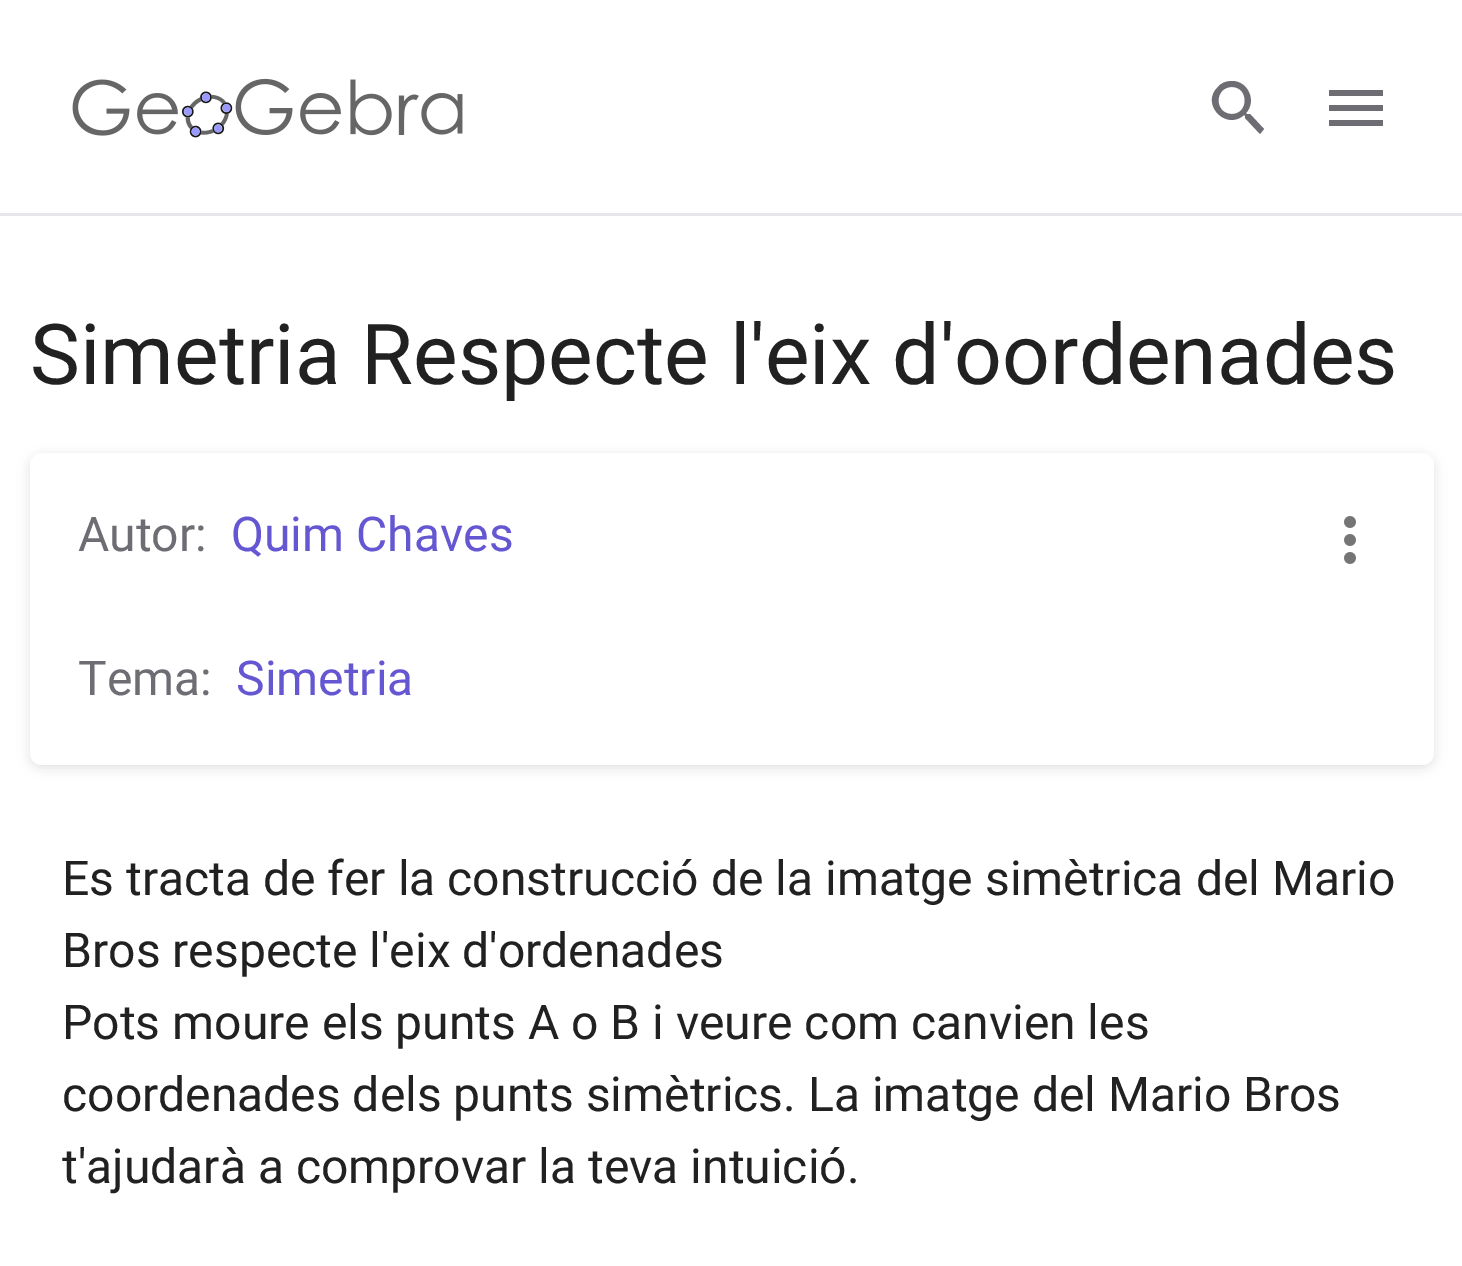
%!PS
<< /PageSize [1462 1266] /PageUsesTransparency true >> setpagedevice
/m/moveto load def
/l/rlineto load def
/c/rcurveto load def
/z/closepath load def
/f/fill load def
/C { dup -16 bitshift 255 div exch dup -8 bitshift 255 and 255 div exch 255 and 255 div setrgbcolor } def
/F { [ exch dup neg 0 0 3 -1 roll 0 0 ] selectfont } def
/T { moveto show } def
/R { rectfill } def
/A { dup .setfillconstantalpha .setstrokeconstantalpha } def
/Q { 5 dict begin { /r /h /w /y /x } { exch def } forall
  x r add y moveto x w add y 2 copy h add r arct x w add y h add x 1 index r arct
  x y h add x y r arct x y 2 copy exch w add exch r arct closepath end } def
/S { 12 dict begin { /a /b /q /h /w /y /x } { exch def } forall gsave /was 0 def
  9 -2 -9 { dup b mul 4 div /e exch def 1 sub .425 mul 2.718 exch exp 1 add a .99 .min exch div /now exch def
    1 1 now sub 1 was sub div sub A /was now def
    w h .min e 2 mul add 0 gt { x e sub y e sub w e 2 mul add h e 2 mul add
      q e add b .6 mul add w h .min 2 div e add .min 0 .max Q fill } if } for grestore end } def
/I { 5 dict begin { /h /w /y /x /name } { exch def } forall
  gsave x y translate w h scale
  w h 8 [w 0 0 h 0 0] name (r) file false 3 colorimage grestore end } def
0 .pushpdf14devicefilter
0 1266 translate 1 -1 scale
4 setmiterlimit
16#FFFFFF C
0 0 1462 1266 R
16#E6E6EB C
0 213 1462 3 R
(1.rgb) 72 78 391 60 I
16#6E6D73 C
1232 81 m 16 0 25 20 14 32 c 1 1 l 3 0 l 14 15 l -4 5 l -15 -16 l 0 -2 l -1 -1 l -18 16 -44 -11 -26 -28 c 3 -4 8 -6 14 -6 c 1232 87 m -18 0 -18 27 0 27 c 17 0 17 -27 0 -27 c z f
1329 90 m 54 0 l 0 6 l -54 0 l 0 -6 l 1329 105 m 54 0 l 0 6 l -54 0 l 0 -6 l 1329 120 m 54 0 l 0 6 l -54 0 l z f
/Roboto-Regular 84 F
16#212121 C
(Simetria Respecte l'eix d'oordenades) 30 384 T
16#1C1C1F C
30 456 1404 312 12 6 .14 S
16#FFFFFF C
30 453 1404 312 12 Q f
/Roboto-Regular 48 F
16#6E6D73 C
(Autor:) 78 551 T
16#6557D2 C
(Quim Chaves) 231 551 T
16#6E6D73 C
(Tema:) 78 695 T
16#6557D2 C
(Simetria) 236 695 T
(2.rgb) 1344 516 12 48 I
16#212121 C
(Es tracta de fer la construcció de la imatge simètrica del Mario) 62 895 T
(Bros respecte l'eix d'ordenades) 62 967 T
(Pots moure els punts A o B i veure com canvien les) 62 1039 T
(coordenades dels punts simètrics. La imatge del Mario Bros) 62 1111 T
(t'ajudarà a comprovar la teva intuició.) 62 1183 T
.poppdf14devicefilter showpage
